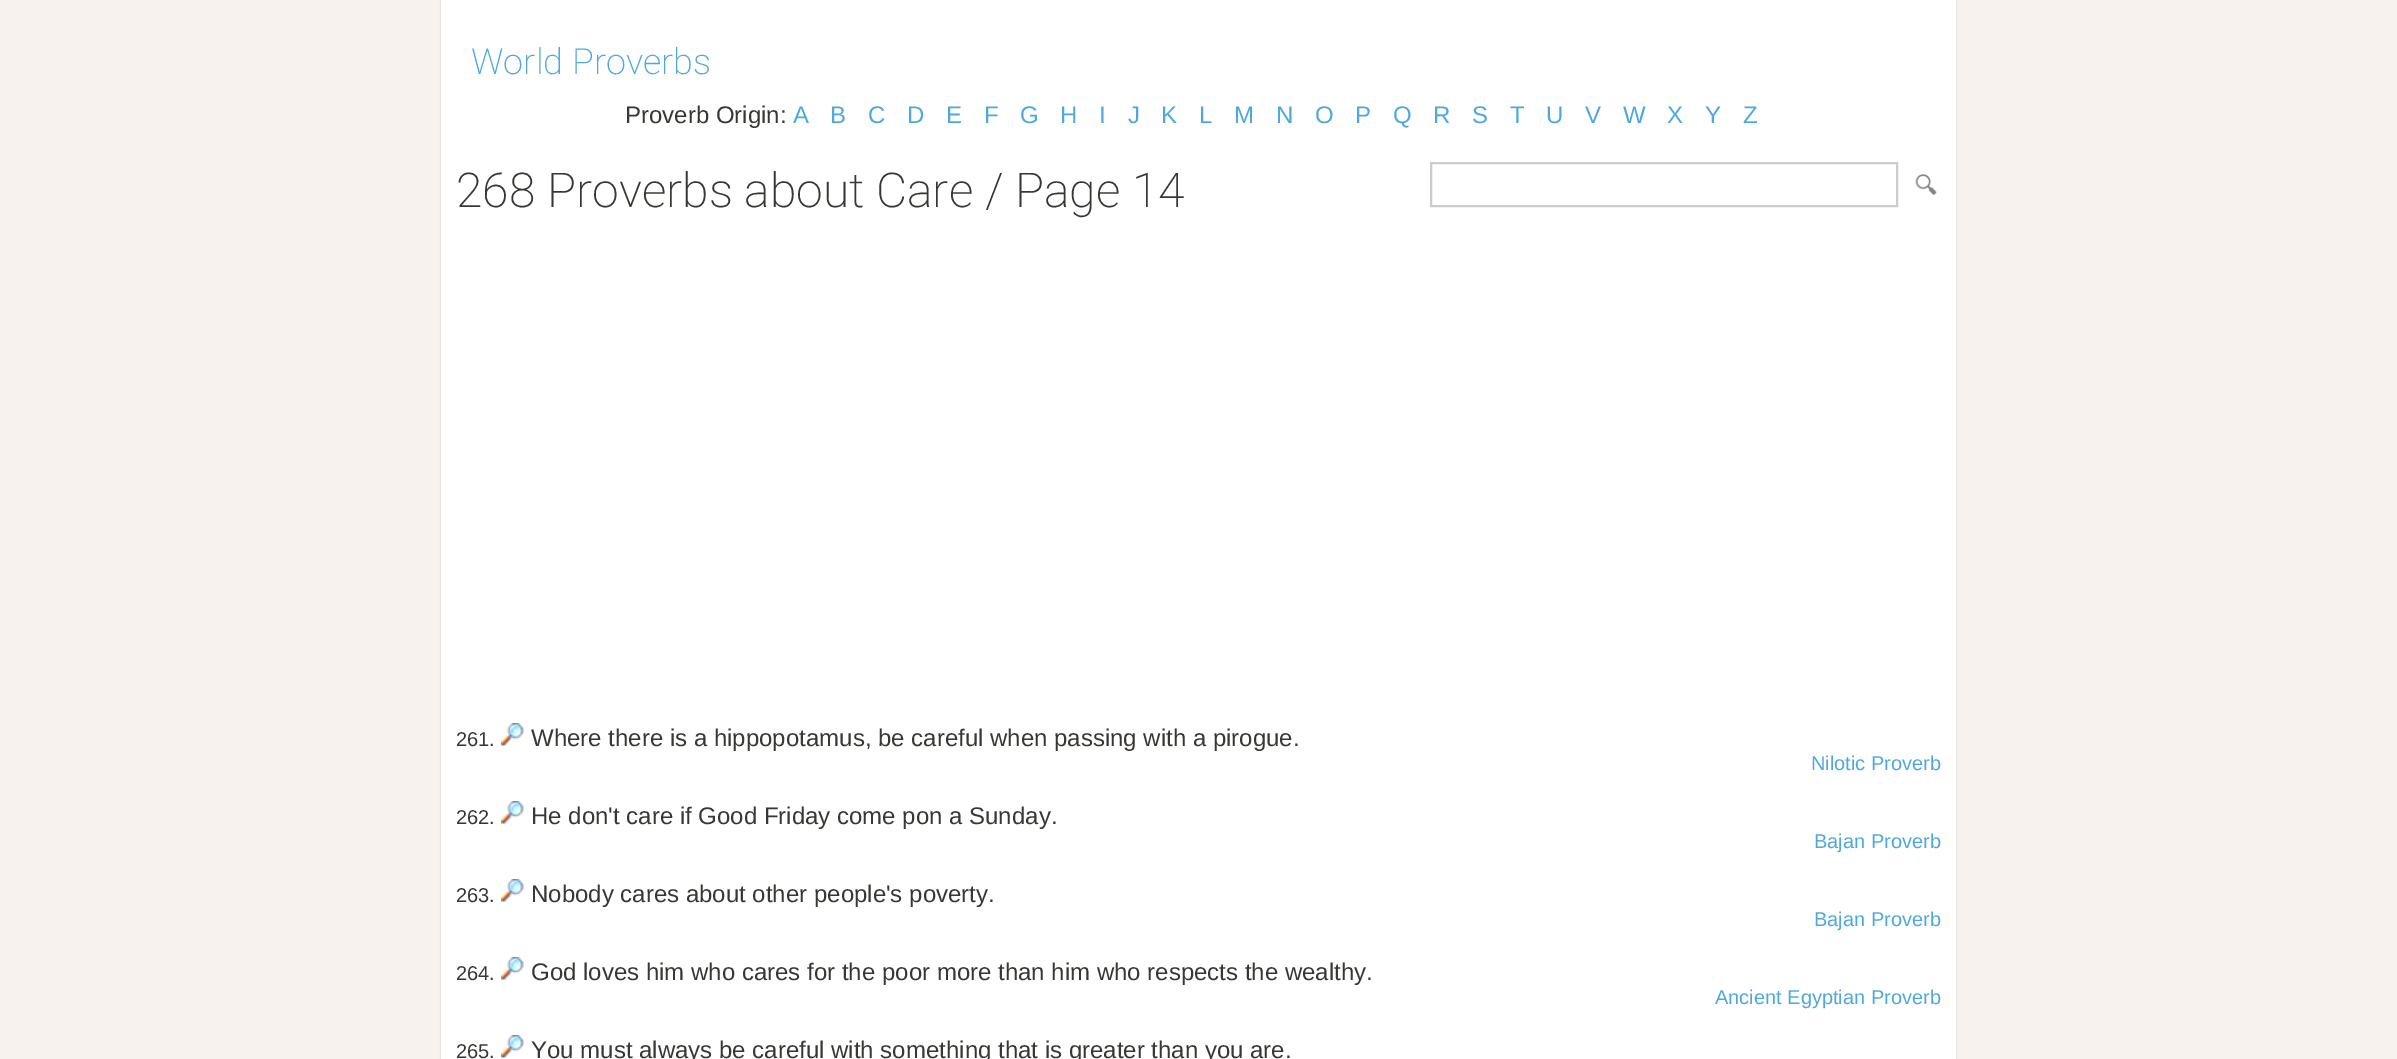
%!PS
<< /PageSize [2397 1059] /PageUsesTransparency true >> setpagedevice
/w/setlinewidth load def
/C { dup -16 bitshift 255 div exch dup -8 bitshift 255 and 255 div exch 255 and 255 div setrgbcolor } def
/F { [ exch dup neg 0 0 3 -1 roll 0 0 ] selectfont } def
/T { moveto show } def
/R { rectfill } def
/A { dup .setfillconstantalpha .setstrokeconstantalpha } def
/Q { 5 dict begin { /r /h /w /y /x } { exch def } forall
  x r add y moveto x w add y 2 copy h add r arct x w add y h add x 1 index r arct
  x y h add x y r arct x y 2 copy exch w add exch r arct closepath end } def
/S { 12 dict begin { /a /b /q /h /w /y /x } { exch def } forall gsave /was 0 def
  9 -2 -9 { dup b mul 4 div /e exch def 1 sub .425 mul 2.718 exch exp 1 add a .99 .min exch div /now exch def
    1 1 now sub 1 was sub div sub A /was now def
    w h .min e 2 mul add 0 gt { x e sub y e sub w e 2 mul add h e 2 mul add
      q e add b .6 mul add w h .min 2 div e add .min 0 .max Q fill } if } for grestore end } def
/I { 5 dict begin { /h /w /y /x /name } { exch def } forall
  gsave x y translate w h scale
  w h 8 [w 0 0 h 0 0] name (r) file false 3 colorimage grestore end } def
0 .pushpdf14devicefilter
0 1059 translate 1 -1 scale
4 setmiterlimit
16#F7F2EE C
0 0 2397 1059 R
16#CCCCCC C
441 0 1515 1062 0 1 1 S
16#FFFFFF C
441 0 1515 1059 R
/Roboto-ExtraLight 36 F
16#4EA8DE C
(World Proverbs) 471 74 T
/LiberationSans-Regular 24 F
16#393733 C
(Proverb Origin:) 625 123 T
16#4EA8DE C
(A) 793 123 T
(B) 830 123 T
(C) 868 123 T
(D) 907 123 T
(E) 946 123 T
(F) 984 123 T
(G) 1020 123 T
(H) 1060 123 T
(I) 1099 123 T
(J) 1128 123 T
(K) 1161 123 T
(L) 1199 123 T
(M) 1234 123 T
(N) 1276 123 T
(O) 1315 123 T
(P) 1355 123 T
(Q) 1393 123 T
(R) 1433 123 T
(S) 1472 123 T
(T) 1510 123 T
(U) 1546 123 T
(V) 1585 123 T
(W) 1623 123 T
(X) 1667 123 T
(Y) 1705 123 T
(Z) 1743 123 T
/Roboto-ExtraLight 48 F
16#393733 C
(268 Proverbs about Care / Page 14) 456 207 T
16#CCCCCC C
2 w
1431 163 466 43 rectstroke
(1.rgb) 1915 174 22 21 I
/LiberationSans-Regular 20 F
16#393733 C
(261.) 456 746 T
(2.rgb) 501 723 23 23 I
/LiberationSans-Regular 24 F
(Where there is a hippopotamus, be careful when passing with a pirogue.) 531 746 T
/LiberationSans-Regular 20 F
16#4EA8DE C
(Nilotic Proverb) 1811 770 T
16#393733 C
(262.) 456 824 T
(2.rgb) 501 801 23 23 I
/LiberationSans-Regular 24 F
(He don't care if Good Friday come pon a Sunday.) 531 824 T
/LiberationSans-Regular 20 F
16#4EA8DE C
(Bajan Proverb) 1814 848 T
16#393733 C
(263.) 456 902 T
(2.rgb) 501 879 23 23 I
/LiberationSans-Regular 24 F
(Nobody cares about other people's poverty.) 531 902 T
/LiberationSans-Regular 20 F
16#4EA8DE C
(Bajan Proverb) 1814 926 T
16#393733 C
(264.) 456 980 T
(2.rgb) 501 957 23 23 I
/LiberationSans-Regular 24 F
(God loves him who cares for the poor more than him who respects the wealthy.) 531 980 T
/LiberationSans-Regular 20 F
16#4EA8DE C
(Ancient Egyptian Proverb) 1715 1004 T
16#393733 C
(265.) 456 1058 T
(2.rgb) 501 1035 23 23 I
/LiberationSans-Regular 24 F
(You must always be careful with something that is greater than you are.) 531 1058 T
.poppdf14devicefilter showpage
